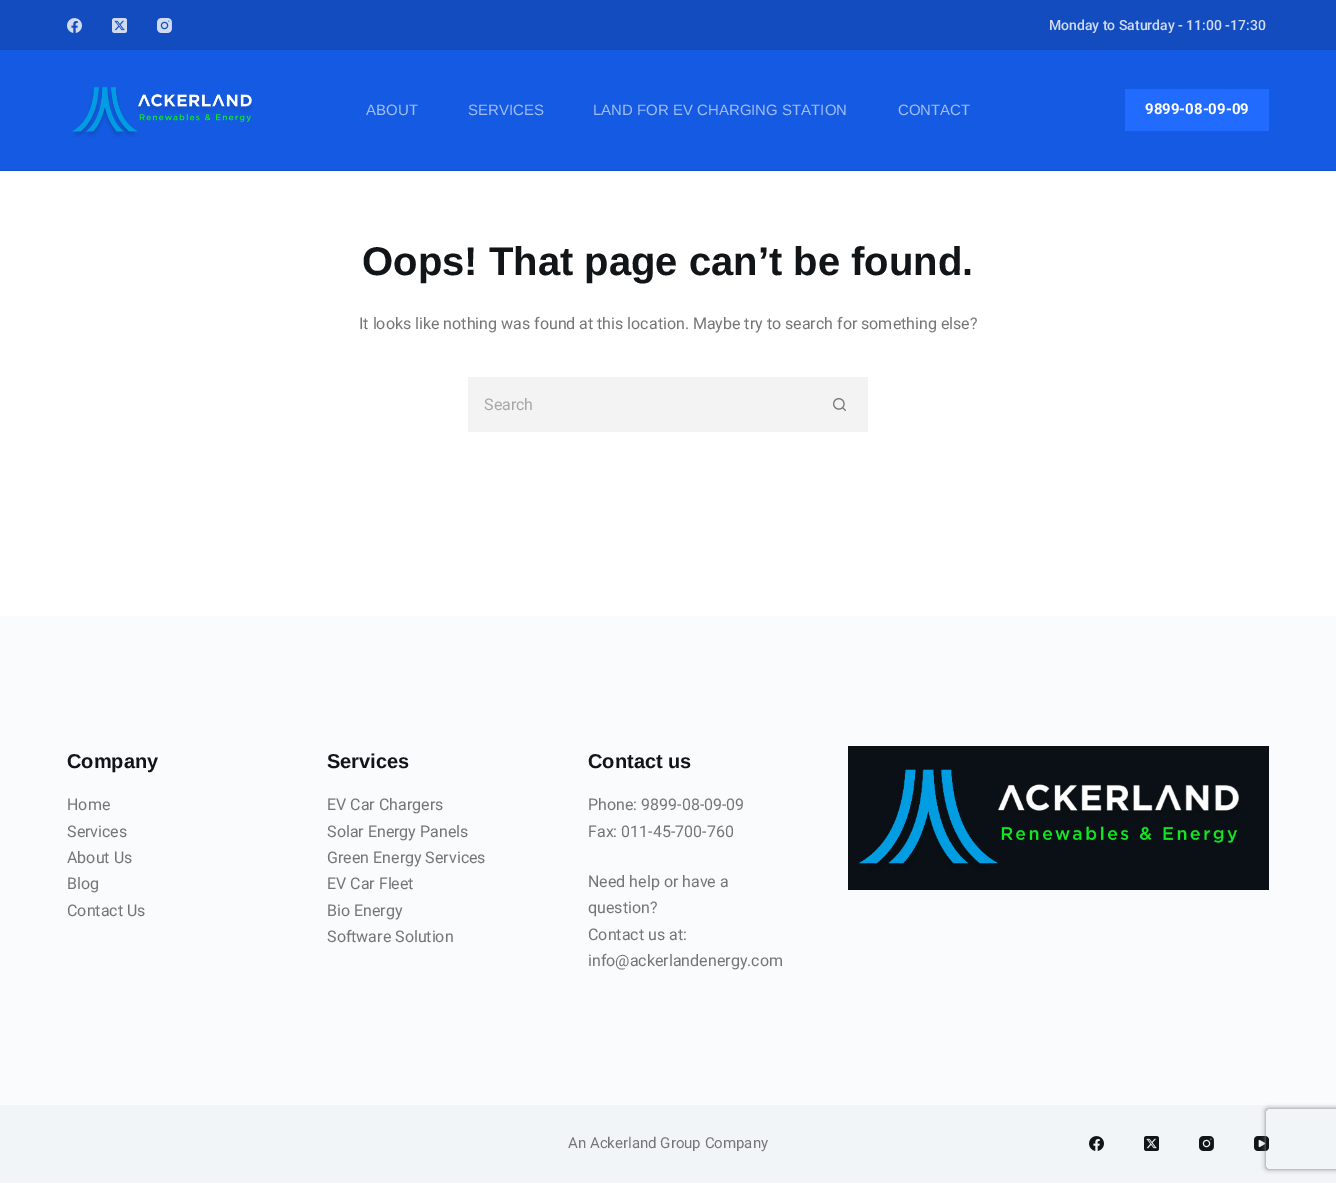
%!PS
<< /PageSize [1336 1183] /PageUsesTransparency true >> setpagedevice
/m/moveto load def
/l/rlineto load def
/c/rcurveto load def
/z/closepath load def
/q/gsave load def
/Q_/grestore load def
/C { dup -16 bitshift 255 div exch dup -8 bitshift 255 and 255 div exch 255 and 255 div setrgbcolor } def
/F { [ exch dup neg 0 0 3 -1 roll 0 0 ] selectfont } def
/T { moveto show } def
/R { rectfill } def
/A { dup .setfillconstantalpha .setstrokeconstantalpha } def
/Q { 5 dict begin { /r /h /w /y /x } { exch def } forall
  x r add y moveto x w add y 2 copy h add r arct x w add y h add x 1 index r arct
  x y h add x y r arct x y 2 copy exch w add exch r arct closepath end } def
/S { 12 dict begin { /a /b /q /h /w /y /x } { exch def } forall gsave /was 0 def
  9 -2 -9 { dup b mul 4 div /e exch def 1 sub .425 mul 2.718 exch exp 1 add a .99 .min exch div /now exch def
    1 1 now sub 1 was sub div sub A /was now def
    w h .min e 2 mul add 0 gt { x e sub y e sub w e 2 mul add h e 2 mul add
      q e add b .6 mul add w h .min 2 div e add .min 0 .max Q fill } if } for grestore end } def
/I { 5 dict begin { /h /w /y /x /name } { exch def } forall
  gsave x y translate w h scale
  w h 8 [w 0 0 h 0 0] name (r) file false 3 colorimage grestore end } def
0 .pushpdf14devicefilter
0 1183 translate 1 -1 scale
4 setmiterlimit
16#FFFFFF C
0 0 1336 1183 R
16#124CBF C
0 0 1336 50 R
(1.rgb) 67 18 15 15 I
(2.rgb) 112 18 15 15 I
(3.rgb) 157 18 15 15 I
/Roboto-Medium 14 F
16#D0DBF2 C
(Monday to Saturday - 11:00 -17:30) 1049 30 T
16#145AE2 C
0 50 1336 120 R
16#1353D1 C
0 170 1336 1 R
(4.rgb) 72 87 181 51 I
/LiberationSans-Regular 15 F
16#A1BDF3 C
(ABOUT) 366 115 T
(SERVICES) 468 115 T
(LAND FOR EV CHARGING STATION) 593 115 T
(CONTACT) 898 115 T
16#216CFF C
1125 89 144 42 R
/Roboto-Bold 15 F
16#FFFFFF C
(9899-08-09-09) 1145 114 T
/LiberationSans-Bold 40 F
16#111518 C
(Oops! That page can’t be found.) 362 275 T
/Roboto-Regular 16 F
16#757575 C
(It looks like nothing was found at this location. Maybe try to search for something else?) 359 329 T
16#F3F3F3 C
468 377 400 55 R
16#A7A7A7 C
(Search) 484 410 T
(5.rgb) 833 398 13 13 I
16#FAFBFC C
0 616 1336 489 R
/LiberationSans-Bold 20 F
16#111518 C
(Company) 67 768 T
/Roboto-Regular 16 F
16#757575 C
(Home) 67 810 T
(Services) 67 837 T
(About Us) 67 863 T
(Blog) 67 889 T
(Contact Us) 67 916 T
/LiberationSans-Bold 20 F
16#111518 C
(Services) 327 768 T
/Roboto-Regular 16 F
16#757575 C
(EV Car Chargers) 327 810 T
(Solar Energy Panels) 327 837 T
(Green Energy Services) 327 863 T
(EV Car Fleet) 327 889 T
(Bio Energy) 327 916 T
(Software Solution) 327 942 T
/LiberationSans-Bold 20 F
16#111518 C
(Contact us) 588 768 T
/Roboto-Regular 16 F
16#757575 C
(Phone: 9899-08-09-09) 588 810 T
(Fax: 011-45-700-760) 588 837 T
(Need help or have a) 588 887 T
(question?) 588 913 T
(Contact us at:) 588 940 T
(info@ackerlandenergy.com) 588 966 T
(6.rgb) 848 746 421 144 I
16#F2F5F7 C
0 1105 1336 78 R
/Roboto-Regular 15 F
16#757575 C
(An Ackerland Group Company) 568 1148 T
(7.rgb) 1089 1136 15 15 I
(8.rgb) 1144 1136 15 15 I
(9.rgb) 1199 1136 15 15 I
(10.rgb) 1254 1136 15 15 I
q
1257 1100 m 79 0 l 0 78 l -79 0 l z 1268 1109 m 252 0 l 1 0 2 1 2 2 c 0 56 l 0 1 -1 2 -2 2 c -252 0 l -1 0 -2 -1 -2 -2 c 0 -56 l 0 -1 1 -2 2 -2 c z eoclip newpath
16#808080 C
1266 1109 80 60 2 2.5 1 S
Q_
.poppdf14devicefilter showpage
